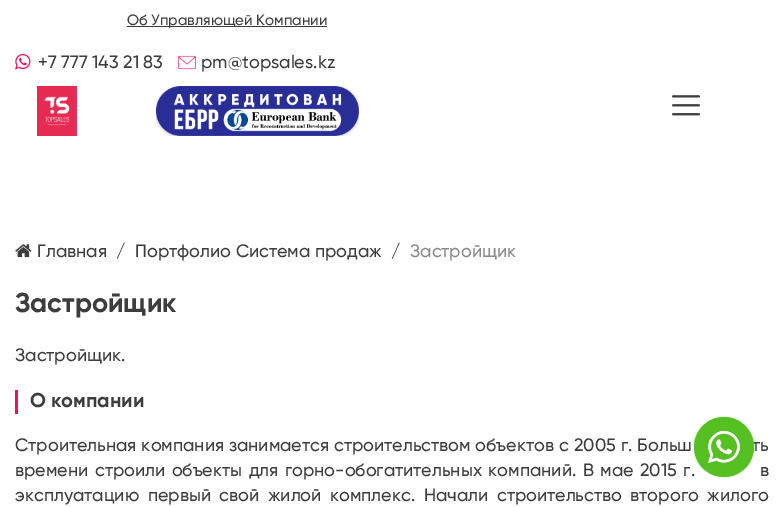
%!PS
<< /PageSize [784 507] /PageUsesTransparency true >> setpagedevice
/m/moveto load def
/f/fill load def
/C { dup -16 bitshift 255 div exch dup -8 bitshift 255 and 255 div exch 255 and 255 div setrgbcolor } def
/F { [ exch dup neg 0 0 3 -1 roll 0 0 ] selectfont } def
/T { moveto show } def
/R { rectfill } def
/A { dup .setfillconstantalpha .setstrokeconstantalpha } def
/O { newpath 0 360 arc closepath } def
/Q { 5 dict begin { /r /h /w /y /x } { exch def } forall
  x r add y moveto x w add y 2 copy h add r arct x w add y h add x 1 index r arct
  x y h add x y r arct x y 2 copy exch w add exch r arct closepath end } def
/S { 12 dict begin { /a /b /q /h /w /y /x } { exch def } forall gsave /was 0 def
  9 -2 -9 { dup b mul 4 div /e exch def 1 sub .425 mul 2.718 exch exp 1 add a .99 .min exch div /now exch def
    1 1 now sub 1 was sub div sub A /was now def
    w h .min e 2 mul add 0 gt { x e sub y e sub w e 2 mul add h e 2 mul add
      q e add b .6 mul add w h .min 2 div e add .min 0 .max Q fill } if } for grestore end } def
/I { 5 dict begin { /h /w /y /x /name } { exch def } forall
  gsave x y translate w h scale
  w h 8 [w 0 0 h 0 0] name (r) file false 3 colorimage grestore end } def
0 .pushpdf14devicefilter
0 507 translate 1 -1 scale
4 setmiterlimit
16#FFFFFF C
0 0 784 507 R
16#3D3D3D C
127 26 200 1 R
/Gilroy-Medium 15 F
(Об Управляющей Компании) 127 25 T
(1.rgb) 15 53 16 17 I
/Gilroy-Medium 18 F
(+7 777 143 21 83) 38 68 T
(2.rgb) 178 55 18 15 I
(pm@topsales.kz) 201 68 T
(3.rgb) 37 86 40 50 I
(4.rgb) 156 86 203 50 I
(5.rgb) 672 95 28 21 I
(6.rgb) 15 244 17 14 I
(Главная) 37 257 T
(/) 116 257 T
(Портфолио Система продаж) 135 257 T
(/) 391 257 T
16#8A8A8A C
(Застройщик) 410 257 T
/Gilroy-Bold 27.25 F
16#3D3D3D C
(Застройщик) 15 312 T
/Gilroy-Medium 18 F
(Застройщик.) 15 361 T
16#EC1354 C
15 390 3 24 R
/Gilroy-Bold 20 F
16#3D3D3D C
(О компании) 30 407 T
/Gilroy-Medium 18 F
15 451 m .5 0 32 (Строительная компания занимается строительством объектов с 2005 г. Больш) widthshow
752 451 m .5 0 32 (ть) widthshow
15 476 m 2 0 32 (времени строили объекты для горно-обогатительных компаний. В мае 2015 г.) widthshow
760 476 m 2 0 32 (в) widthshow
15 501 m 4 0 32 (эксплуатацию первый свой жилой комплекс. Начали строительство второго жилого) widthshow
16#09FF00 C
693 416 62 62 31 .5 .1 S
16#56BF22 C
724 447 30 O f
(7.rgb) 708 431 32 32 I
.poppdf14devicefilter showpage
